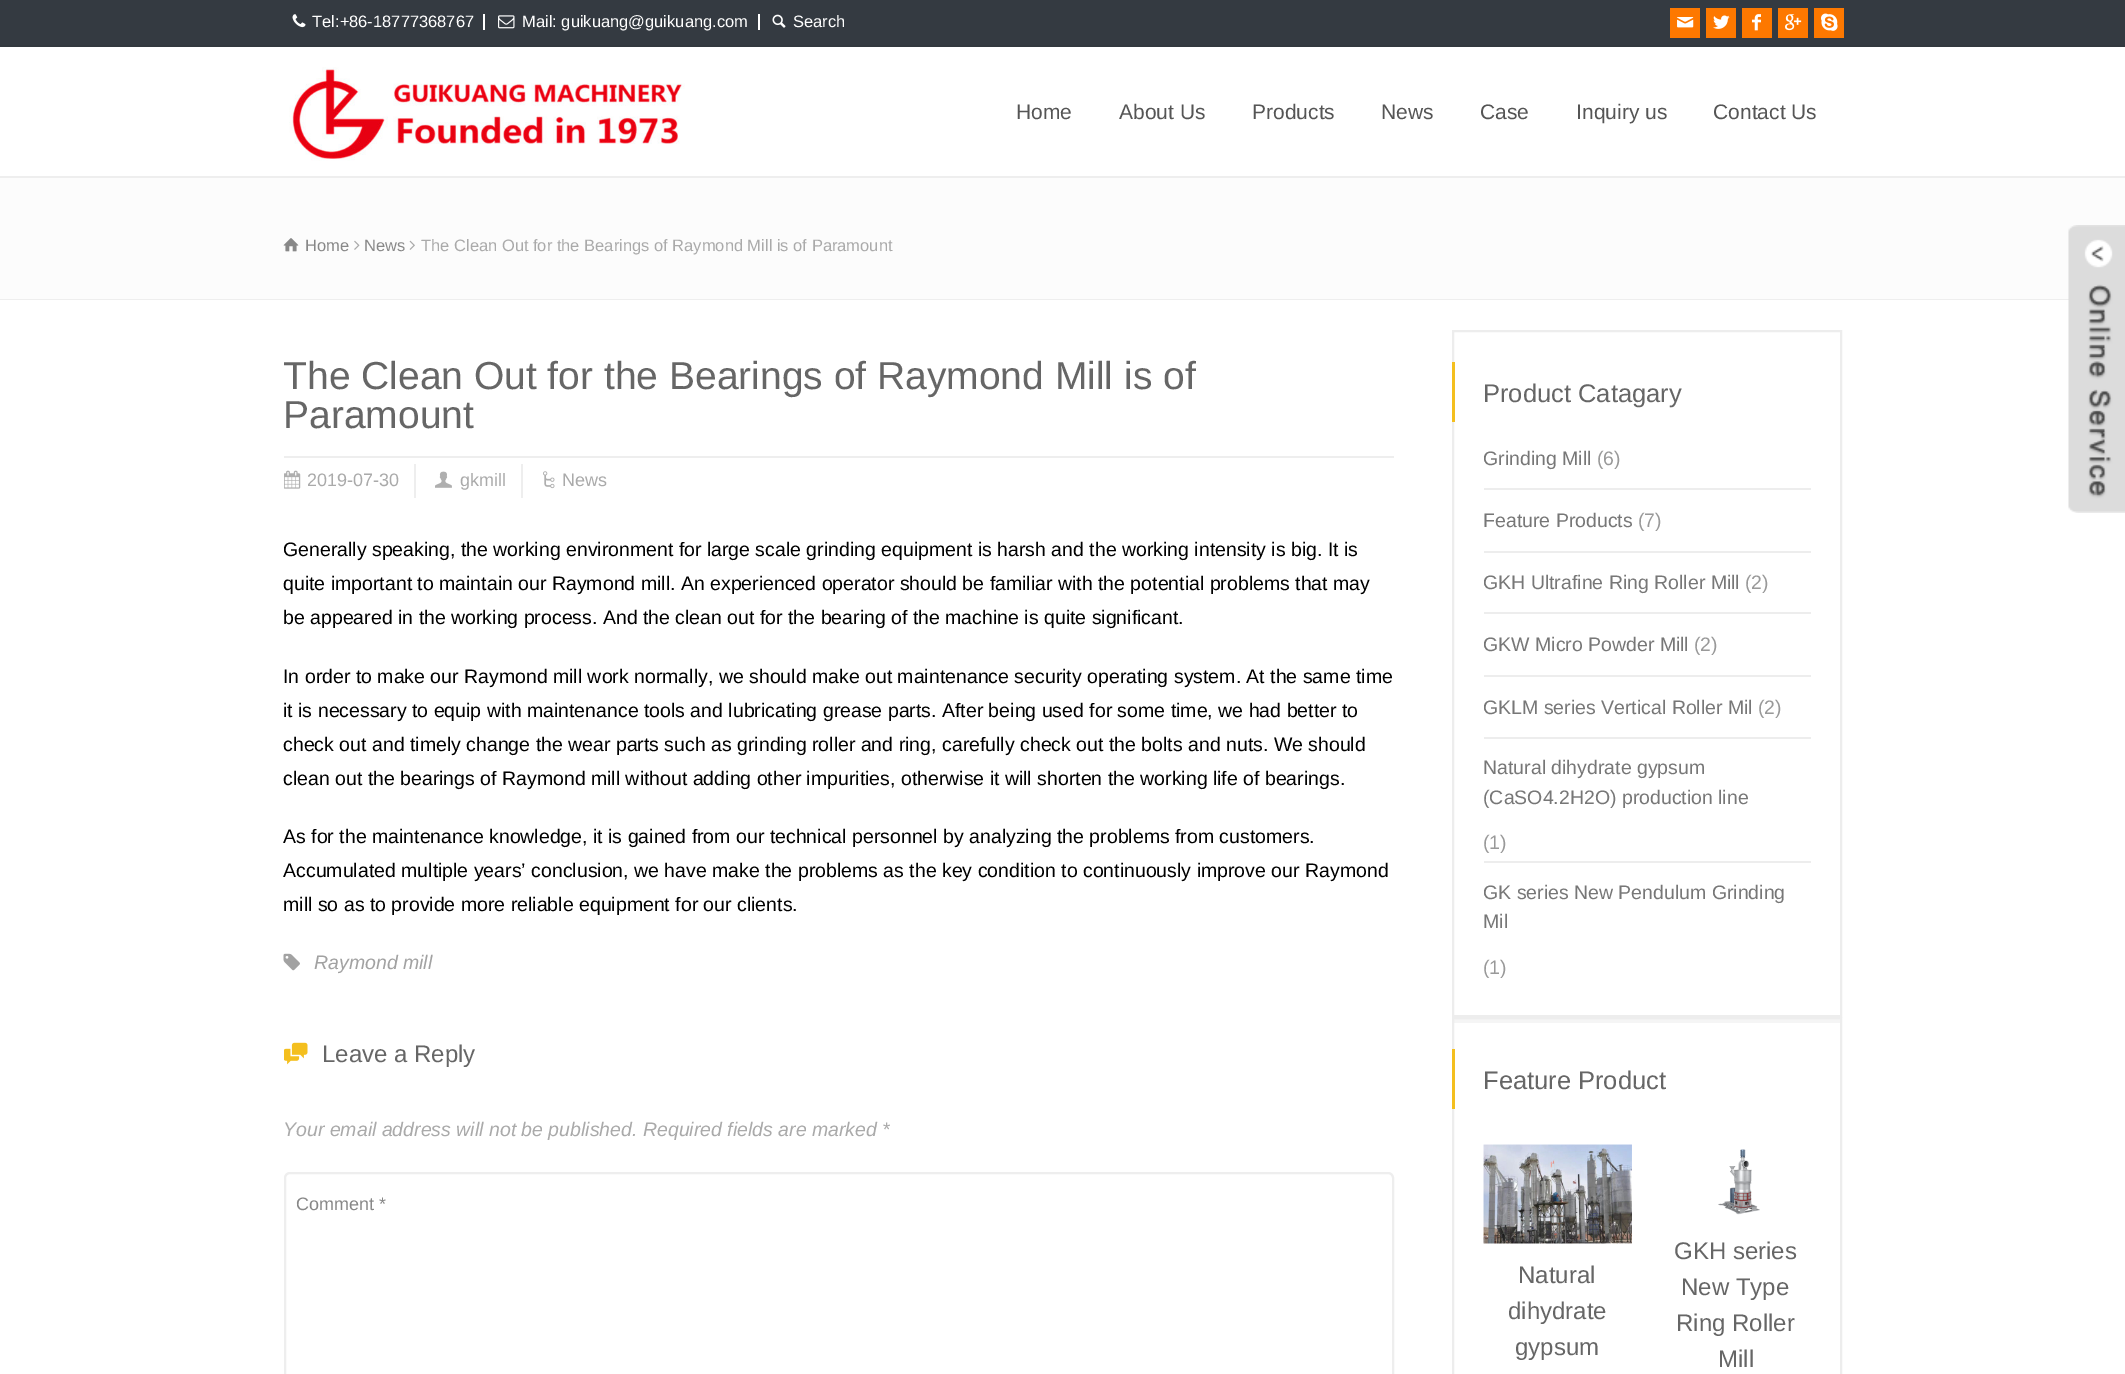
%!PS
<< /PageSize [2125 1374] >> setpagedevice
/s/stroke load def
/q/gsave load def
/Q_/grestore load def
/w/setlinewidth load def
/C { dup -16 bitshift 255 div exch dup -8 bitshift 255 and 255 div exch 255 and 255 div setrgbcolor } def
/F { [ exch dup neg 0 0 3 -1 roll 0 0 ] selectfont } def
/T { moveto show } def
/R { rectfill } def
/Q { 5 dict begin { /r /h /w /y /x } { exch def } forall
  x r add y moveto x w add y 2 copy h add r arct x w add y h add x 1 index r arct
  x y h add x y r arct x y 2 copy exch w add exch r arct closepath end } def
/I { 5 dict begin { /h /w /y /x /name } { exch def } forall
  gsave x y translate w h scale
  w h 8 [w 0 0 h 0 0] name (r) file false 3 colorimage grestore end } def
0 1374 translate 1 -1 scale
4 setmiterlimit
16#FFFFFF C
0 0 2125 1374 R
16#343A41 C
0 0 2125 45 R
16#32383E C
0 45 2125 2 R
16#FFFFFF C
483 14 2 16 R
(1.rgb) 292 14 14 14 I
/LiberationSans-Regular 16.5 F
(Tel:+86-18777368767) 312 27 T
758 14 2 16 R
(2.rgb) 498 15 17 14 I
(Mail: guikuang@guikuang.com) 522 27 T
(3.rgb) 772 14 14 14 I
(Search) 793 27 T
16#FD7800 C
1670 8 30 30 R
(4.rgb) 1677 17 17 11 I
1706 8 30 30 R
(5.rgb) 1713 15 17 14 I
1742 8 30 30 R
(6.rgb) 1752 14 9 17 I
1778 8 30 30 R
(7.rgb) 1785 14 17 17 I
1814 8 30 30 R
(8.rgb) 1821 13 17 18 I
(9.rgb) 289 67 396 94 I
/LiberationSans-Regular 21 F
16#555555 C
(Home) 1016 119 T
(About Us) 1119 119 T
(Products) 1252 119 T
(News) 1381 119 T
(Case) 1480 119 T
(Inquiry us) 1576 119 T
(Contact Us) 1713 119 T
16#FCFCFC C
0 178 2125 121 R
16#EEEEEE C
0 176 2125 2 R
0 299 2069 1 R
(10.rgb) 283 238 16 14 I
/LiberationSans-Regular 16.5 F
16#888888 C
(Home) 305 251 T
(11.rgb) 354 240 6 10 I
(News) 364 251 T
(12.rgb) 409 240 6 10 I
16#AAAAAA C
(The Clean Out for the Bearings of Raymond Mill is of Paramount) 421 251 T
q
284 330 1110 204 rectclip
/LiberationSans-Regular 39 F
16#666666 C
(The Clean Out for the Bearings of Raymond Mill is of) 283 389 T
Q_
/LiberationSans-Regular 39 F
16#666666 C
(Paramount) 283 428 T
16#EEEEEE C
284 456 1110 2 R
414 464 2 34 R
(13.rgb) 284 470 17 19 I
/LiberationSans-Regular 18 F
16#AAAAAA C
(2019-07-30) 307 486 T
16#EEEEEE C
521 464 2 34 R
(14.rgb) 435 471 17 17 I
16#AAAAAA C
(gkmill) 460 486 T
(15.rgb) 543 471 12 18 I
(News) 562 486 T
/LiberationSans-Regular 19.5 F
16#000000 C
(Generally speaking, the working environment for large scale grinding equipment is harsh and the working intensity is big. It is) 283 556 T
(quite important to maintain our Raymond mill. An experienced operator should be familiar with the potential problems that may) 283 590 T
(be appeared in the working process. And the clean out for the bearing of the machine is quite significant.) 283 624 T
(In order to make our Raymond mill work normally, we should make out maintenance security operating system. At the same time) 283 683 T
(it is necessary to equip with maintenance tools and lubricating grease parts. After being used for some time, we had better to) 283 717 T
(check out and timely change the wear parts such as grinding roller and ring, carefully check out the bolts and nuts. We should) 283 751 T
(clean out the bearings of Raymond mill without adding other impurities, otherwise it will shorten the working life of bearings.) 283 785 T
(As for the maintenance knowledge, it is gained from our technical personnel by analyzing the problems from customers.) 283 843 T
(Accumulated multiple years’ conclusion, we have make the problems as the key condition to continuously improve our Raymond) 283 877 T
(mill so as to provide more reliable equipment for our clients.) 283 911 T
(16.rgb) 283 953 17 18 I
/LiberationSans-Italic 19.5 F
16#A2A2A2 C
(Raymond mill) 314 969 T
(17.rgb) 284 1042 24 23 I
/LiberationSans-Regular 24 F
16#666666 C
(Leave a Reply) 322 1062 T
/LiberationSans-Italic 19.5 F
16#AAAAAA C
(Your email address will not be published. Required fields are marked *) 283 1136 T
16#EEEEEE C
2 w
285 1173 1108 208 5 Q s
/LiberationSans-Regular 18 F
16#888888 C
(Comment *) 296 1210 T
16#F5F5F5 C
1452 1019 390 4 R
16#EDEDED C
1453 331 388 685 rectstroke
16#F4BF1E C
1452 362 3 60 R
/LiberationSans-Regular 25.5 F
16#666666 C
(Product Catagary) 1483 402 T
16#EDEDED C
1484 488 327 2 R
/LiberationSans-Regular 19.5 F
16#777777 C
(Grinding Mill) 1483 465 T
16#999999 C
(\(6\)) 1597 465 T
16#EDEDED C
1484 551 327 2 R
16#777777 C
(Feature Products) 1483 527 T
16#999999 C
(\(7\)) 1638 527 T
16#EDEDED C
1484 612 327 2 R
16#777777 C
(GKH Ultrafine Ring Roller Mill) 1483 589 T
16#999999 C
(\(2\)) 1745 589 T
16#EDEDED C
1484 675 327 2 R
16#777777 C
(GKW Micro Powder Mill) 1483 651 T
16#999999 C
(\(2\)) 1694 651 T
16#EDEDED C
1484 737 327 2 R
16#777777 C
(GKLM series Vertical Roller Mil) 1483 714 T
16#999999 C
(\(2\)) 1758 714 T
16#EDEDED C
1484 861 327 2 R
16#777777 C
(Natural dihydrate gypsum) 1483 774 T
(\(CaSO4.2H2O\) production line) 1483 804 T
16#999999 C
(\(1\)) 1483 849 T
16#777777 C
(GK series New Pendulum Grinding) 1483 899 T
(Mil) 1483 928 T
16#999999 C
(\(1\)) 1483 974 T
16#EDEDED C
1453 1018 388 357 rectstroke
16#F4BF1E C
1452 1049 3 60 R
/LiberationSans-Regular 25.5 F
16#666666 C
(Feature Product) 1483 1089 T
(18.rgb) 1483 1144 149 100 I
/LiberationSans-Regular 24 F
(Natural) 1518 1283 T
(dihydrate) 1508 1319 T
(gypsum) 1515 1355 T
(19.rgb) 1718 1149 42 66 I
(GKH series) 1674 1259 T
(New Type) 1681 1295 T
(Ring Roller) 1676 1331 T
(Mill) 1718 1367 T
(20.rgb) 2068 225 57 288 I
showpage
